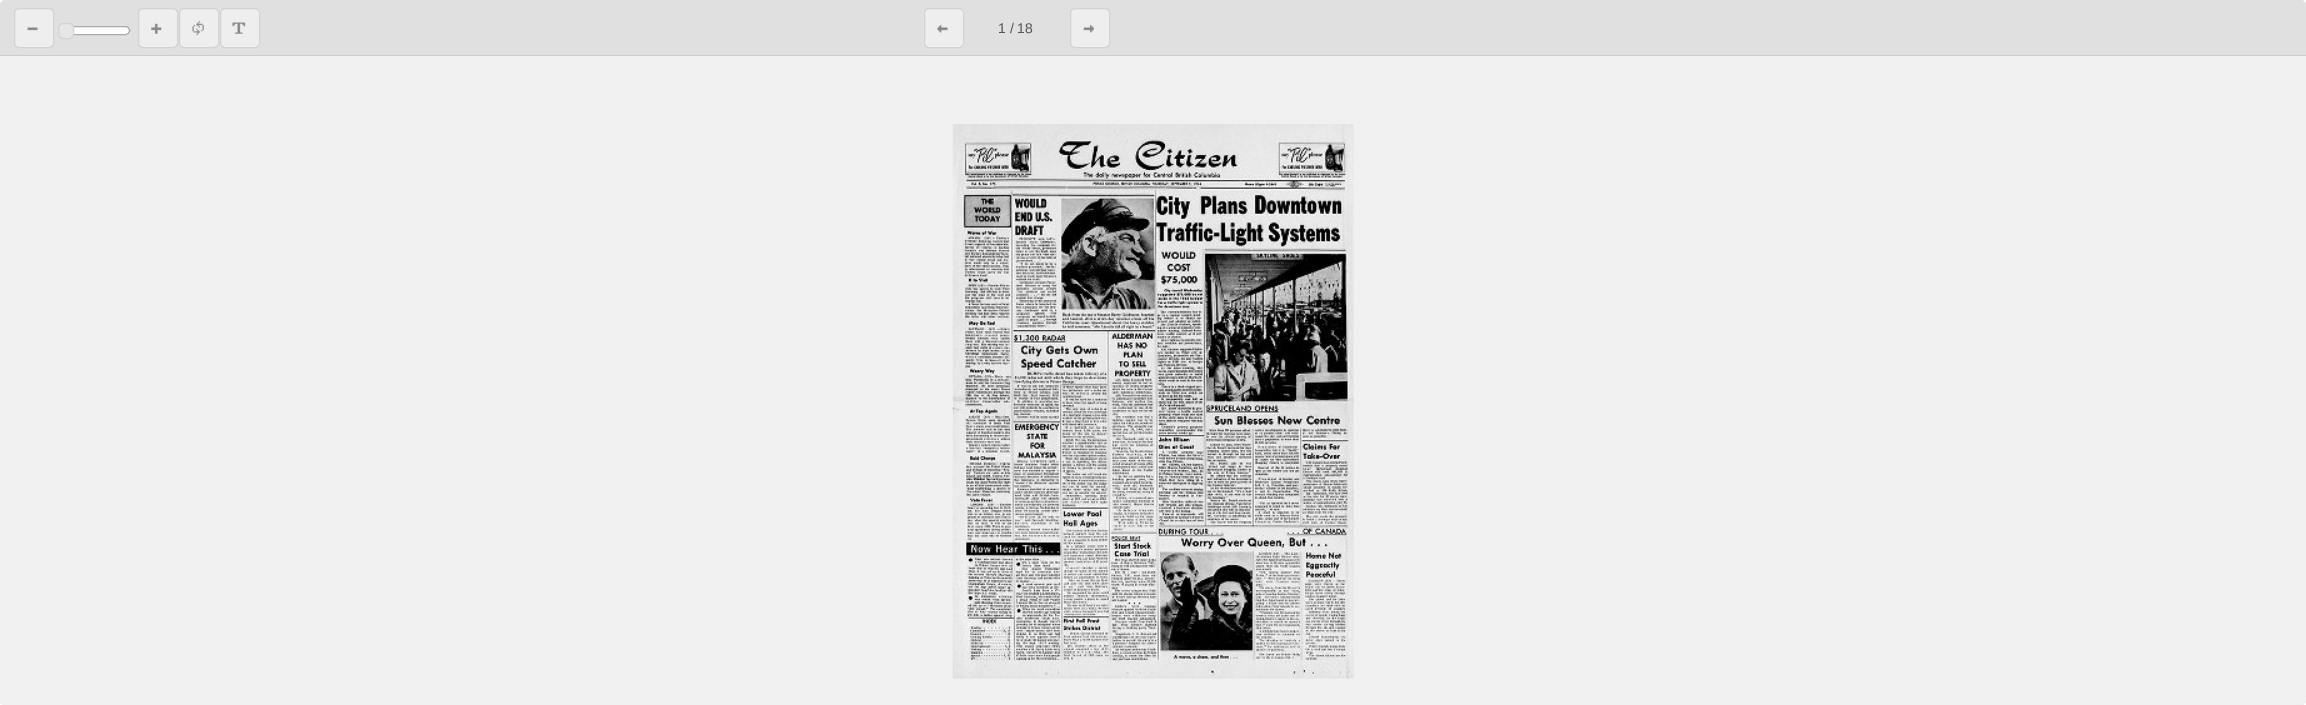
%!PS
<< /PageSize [2306 705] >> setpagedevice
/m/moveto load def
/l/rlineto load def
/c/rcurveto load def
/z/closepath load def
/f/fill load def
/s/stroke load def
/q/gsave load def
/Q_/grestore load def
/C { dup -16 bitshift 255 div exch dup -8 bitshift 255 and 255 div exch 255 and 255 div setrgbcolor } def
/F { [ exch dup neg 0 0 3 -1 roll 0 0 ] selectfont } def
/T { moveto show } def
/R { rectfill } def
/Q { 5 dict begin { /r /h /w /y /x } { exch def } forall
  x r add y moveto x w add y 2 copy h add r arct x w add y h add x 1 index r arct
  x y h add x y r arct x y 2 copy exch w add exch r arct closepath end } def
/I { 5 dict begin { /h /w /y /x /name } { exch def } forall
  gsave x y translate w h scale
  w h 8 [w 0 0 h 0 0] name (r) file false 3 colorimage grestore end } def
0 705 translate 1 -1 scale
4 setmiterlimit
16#FFFFFF C
0 0 2306 705 R
16#E0E0E0 C
0 0 2306 705 5 Q f
16#CCCCCC C
0 55 2306 1 R
16#EEEEEE C
14.5 8.5 39 39 4.5 Q q f Q_
16#D3D3D3 C
s
(1.rgb) 27 27 11 4 I
(2.rgb) 73 27 57 8 I
16#AAAAAA C
65.5 26.5 64 8 4 Q s
16#E6E6E6 C
58.5 23.5 15 15 4.5 Q q f Q_
16#D3D3D3 C
s
16#EEEEEE C
138.5 8.5 39 39 4.5 Q q f Q_
16#D3D3D3 C
s
(3.rgb) 151 23 11 11 I
16#EEEEEE C
179.5 8.5 39 39 4.5 Q q f Q_
16#D3D3D3 C
s
(4.rgb) 192 21 12 15 I
16#EEEEEE C
220.5 8.5 39 39 4.5 Q q f Q_
16#D3D3D3 C
s
(5.rgb) 232 22 14 12 I
16#EEEEEE C
924.5 8.5 39 39 4.5 Q q f Q_
16#D3D3D3 C
s
(6.rgb) 937 24 11 9 I
/LiberationSans-Regular 14 F
16#555555 C
(1 / 18) 998 33 T
16#EEEEEE C
1070.5 8.5 39 39 4.5 Q q f Q_
16#D3D3D3 C
s
(7.rgb) 1083 24 11 9 I
16#F0F0F0 C
0 56 m 2306 0 l 0 644 l 0 3 -2 5 -5 5 c -2296 0 l -3 0 -5 -2 -5 -5 c z f
(8.rgb) 952 124 402 555 I
showpage
